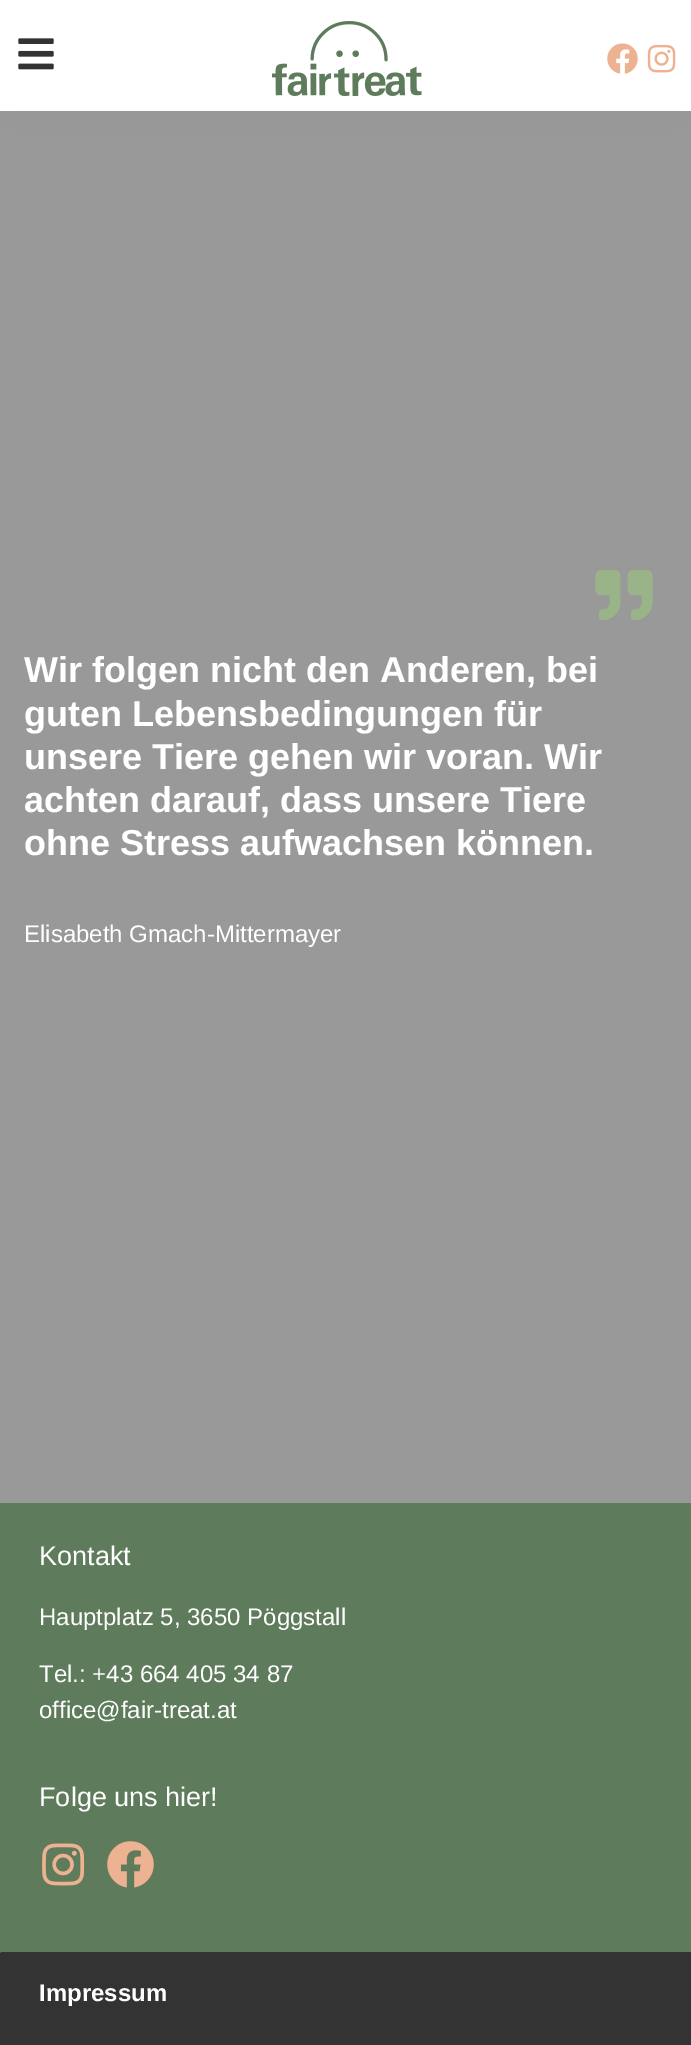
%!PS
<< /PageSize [691 2045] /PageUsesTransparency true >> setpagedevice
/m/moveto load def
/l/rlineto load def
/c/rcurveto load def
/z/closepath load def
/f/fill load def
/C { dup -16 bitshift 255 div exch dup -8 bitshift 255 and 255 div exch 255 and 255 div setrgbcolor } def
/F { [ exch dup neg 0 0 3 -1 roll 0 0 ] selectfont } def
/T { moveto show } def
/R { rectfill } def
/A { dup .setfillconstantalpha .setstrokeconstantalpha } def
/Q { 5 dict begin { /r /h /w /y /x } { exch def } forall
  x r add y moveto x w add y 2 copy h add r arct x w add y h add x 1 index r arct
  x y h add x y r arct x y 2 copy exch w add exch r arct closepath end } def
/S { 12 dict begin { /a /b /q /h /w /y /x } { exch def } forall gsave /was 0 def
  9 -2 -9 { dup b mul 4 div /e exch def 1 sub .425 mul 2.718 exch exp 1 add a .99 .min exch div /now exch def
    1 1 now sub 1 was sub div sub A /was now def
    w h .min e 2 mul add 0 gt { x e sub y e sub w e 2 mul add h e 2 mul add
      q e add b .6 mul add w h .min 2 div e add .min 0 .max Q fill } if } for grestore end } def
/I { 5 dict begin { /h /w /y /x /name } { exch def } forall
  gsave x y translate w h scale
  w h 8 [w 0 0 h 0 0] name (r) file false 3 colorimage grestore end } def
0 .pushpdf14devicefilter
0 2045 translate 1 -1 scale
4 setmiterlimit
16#FFFFFF C
0 0 691 2045 R
16#999999 C
0 110 691 1393 R
16#818181 C
12 23 668 87 0 37.5 .16 S
16#FFFFFF C
0 0 691 111 R
(1.rgb) 18 38 36 32 I
(2.rgb) 272 21 150 75 I
(3.rgb) 607 43 31 31 I
(4.rgb) 647 44 29 29 I
(5.rgb) 595 570 58 50 I
/LiberationSans-Bold 36 F
(Wir folgen nicht den Anderen, bei) 24 682 T
(guten Lebensbedingungen für) 24 726 T
(unsere Tiere gehen wir voran. Wir) 24 769 T
(achten darauf, dass unsere Tiere) 24 812 T
(ohne Stress aufwachsen können.) 24 855 T
/LiberationSans-Regular 24 F
(Elisabeth Gmach-Mittermayer) 24 942 T
16#5E7B5B C
0 1503 691 449 R
/LiberationSans-Regular 27 F
16#FFFFFF C
(Kontakt) 39 1565 T
/LiberationSans-Regular 24 F
(Hauptplatz 5, 3650 Pöggstall) 39 1625 T
(Tel.: +43 664 405 34 87) 39 1682 T
(office@fair-treat.at) 39 1718 T
/LiberationSans-Regular 27 F
(Folge uns hier!) 39 1806 T
(6.rgb) 42 1843 43 43 I
(7.rgb) 107 1841 47 47 I
16#333333 C
1.5 1952 m 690.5 0 l 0 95 l -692 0 l 0 -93.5 l 0 -1 .5 -1.5 1.5 -1.5 c z f
/LiberationSans-Bold 24 F
16#FFFFFF C
(Impressum) 39 2001 T
.poppdf14devicefilter showpage
